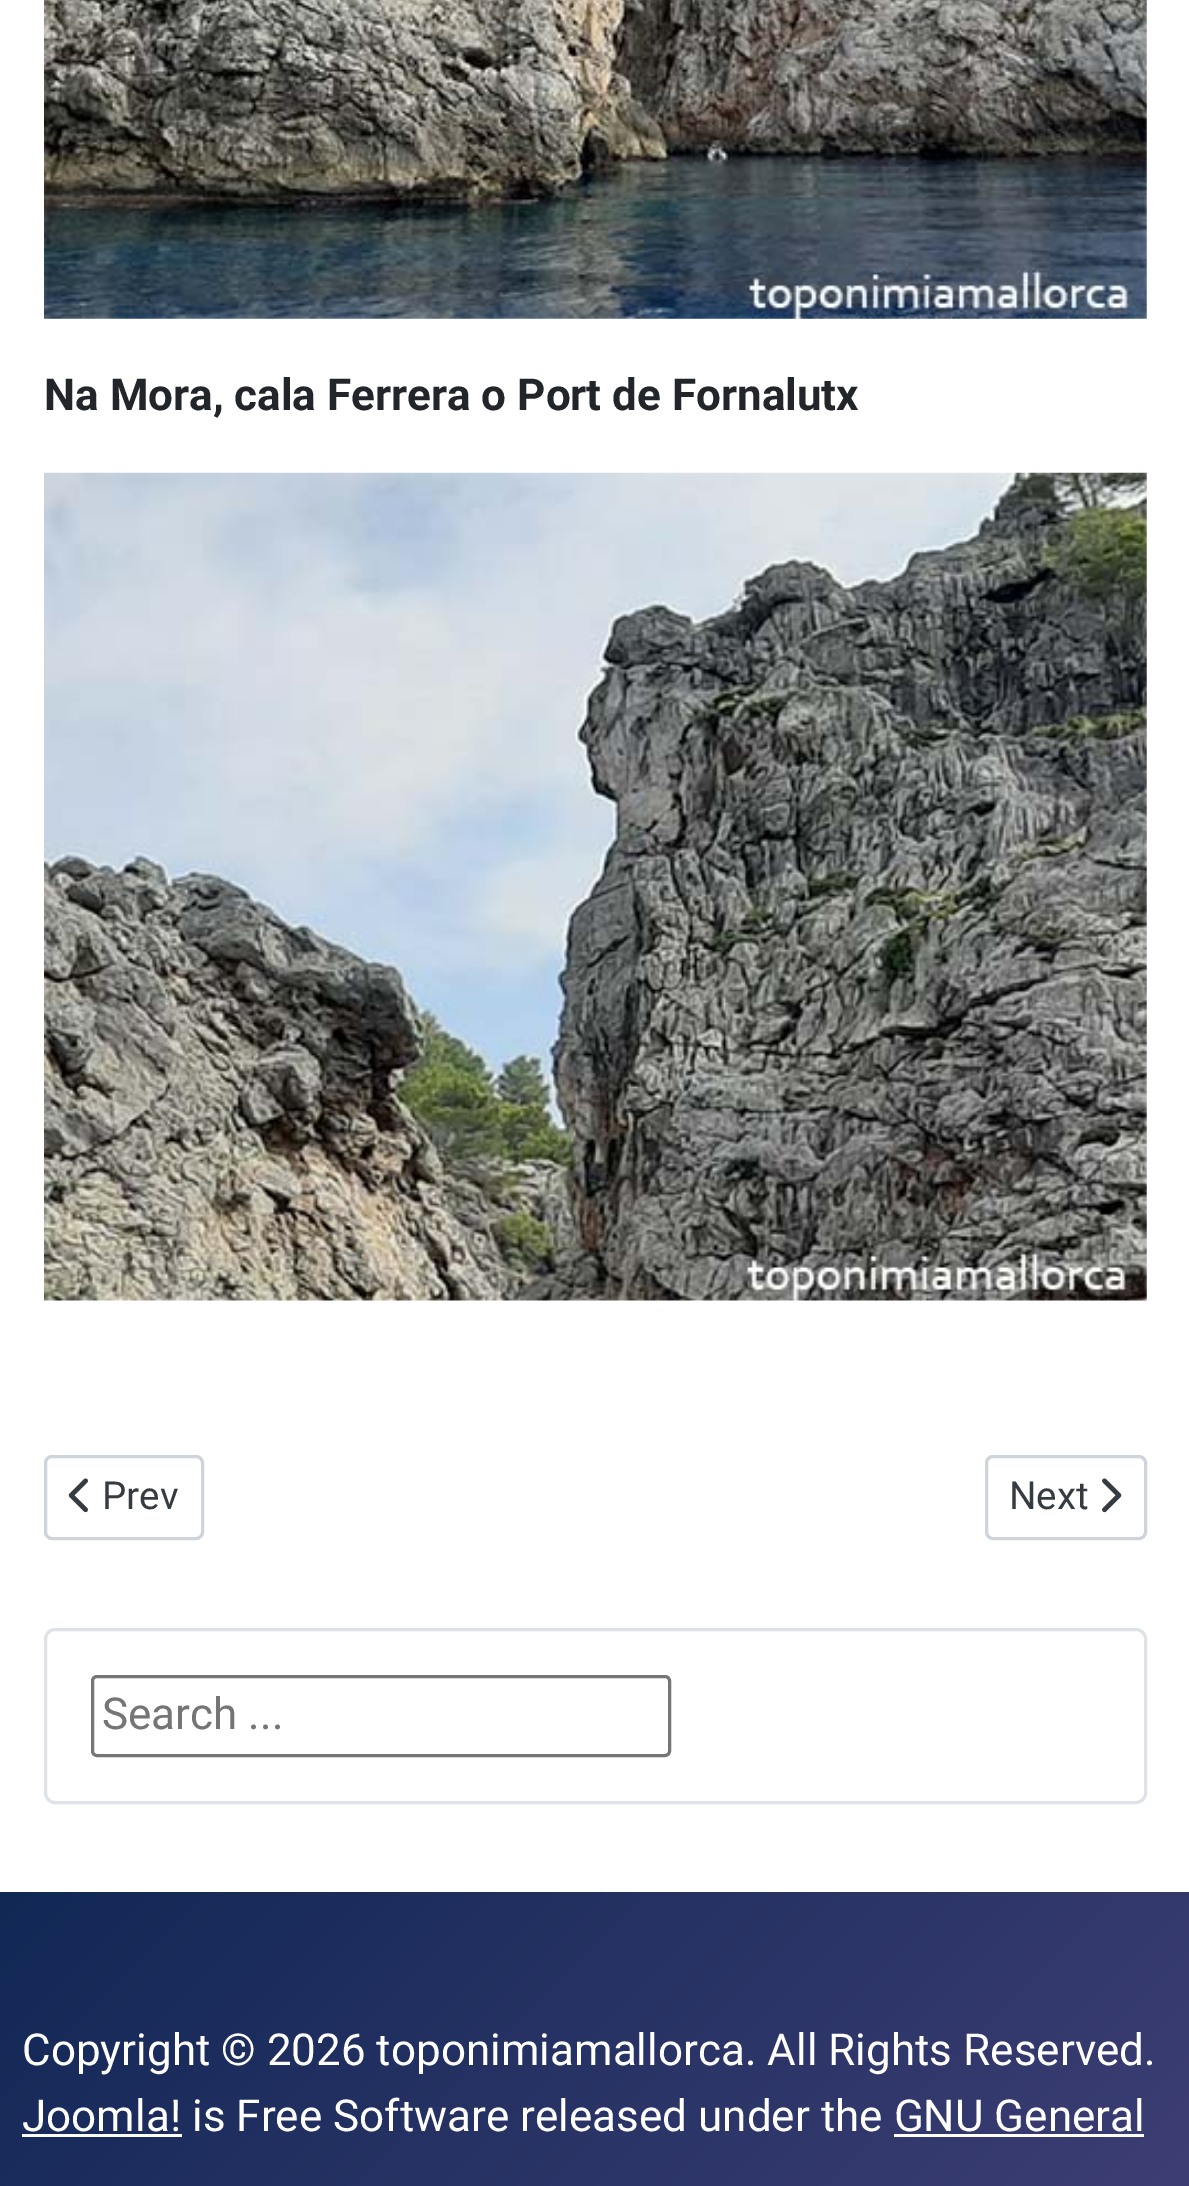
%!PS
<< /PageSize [1189 2186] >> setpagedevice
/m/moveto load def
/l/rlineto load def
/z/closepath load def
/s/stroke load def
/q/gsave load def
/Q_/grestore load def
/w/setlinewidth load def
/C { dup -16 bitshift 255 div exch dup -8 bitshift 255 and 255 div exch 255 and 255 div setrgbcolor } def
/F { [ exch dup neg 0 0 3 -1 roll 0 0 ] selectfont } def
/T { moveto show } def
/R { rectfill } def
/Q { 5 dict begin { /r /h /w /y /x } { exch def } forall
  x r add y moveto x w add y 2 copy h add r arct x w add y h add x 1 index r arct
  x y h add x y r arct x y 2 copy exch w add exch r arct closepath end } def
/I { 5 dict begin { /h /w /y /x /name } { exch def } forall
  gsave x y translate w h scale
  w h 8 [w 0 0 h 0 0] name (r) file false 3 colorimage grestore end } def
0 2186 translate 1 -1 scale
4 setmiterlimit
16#FFFFFF C
0 0 1189 2186 R
(1.rgb) 44 0 1103 319 I
/Roboto-Bold 44 F
16#22262A C
(Na Mora, cala Ferrera o Port de Fornalutx) 44 410 T
(2.rgb) 44 472 1103 829 I
16#CED4DA C
3 w
45.5 1456.5 157 82 6.5 Q s
(3.rgb) 68 1478 20 35 I
/Roboto-Regular 38.5 F
16#353B41 C
(Prev) 102 1509 T
16#CED4DA C
986.5 1456.5 159 82 6.5 Q s
16#353B41 C
(Next) 1009 1509 T
(4.rgb) 1102 1478 20 35 I
16#DFE3E7 C
45.5 1629.5 1100 173 9.5 Q s
16#767676 C
92.5 1676.5 577 79 4.5 Q s
/Roboto-Regular 44 F
16#757575 C
(Search ...) 102 1729 T
q 0 1892 m 1189 0 l 0 294 l -1189 0 l z clip newpath
<< /ShadingType 2 /ColorSpace /DeviceRGB /Coords [185 1707 1006 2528] /Extend [true true] /Function << /FunctionType 2 /Domain [0 1] /C0 [.067 .157 .333] /C1 [.259 .251 .467] /N 1 >> >> shfill Q_
16#FFFFFF C
(Copyright © 2026 toponimiamallorca. All Rights Reserved.) 22 2065 T
(Joomla! is Free Software released under the GNU General) 22 2131 T
22 2134 160 3 R
894 2134 250 3 R
showpage
